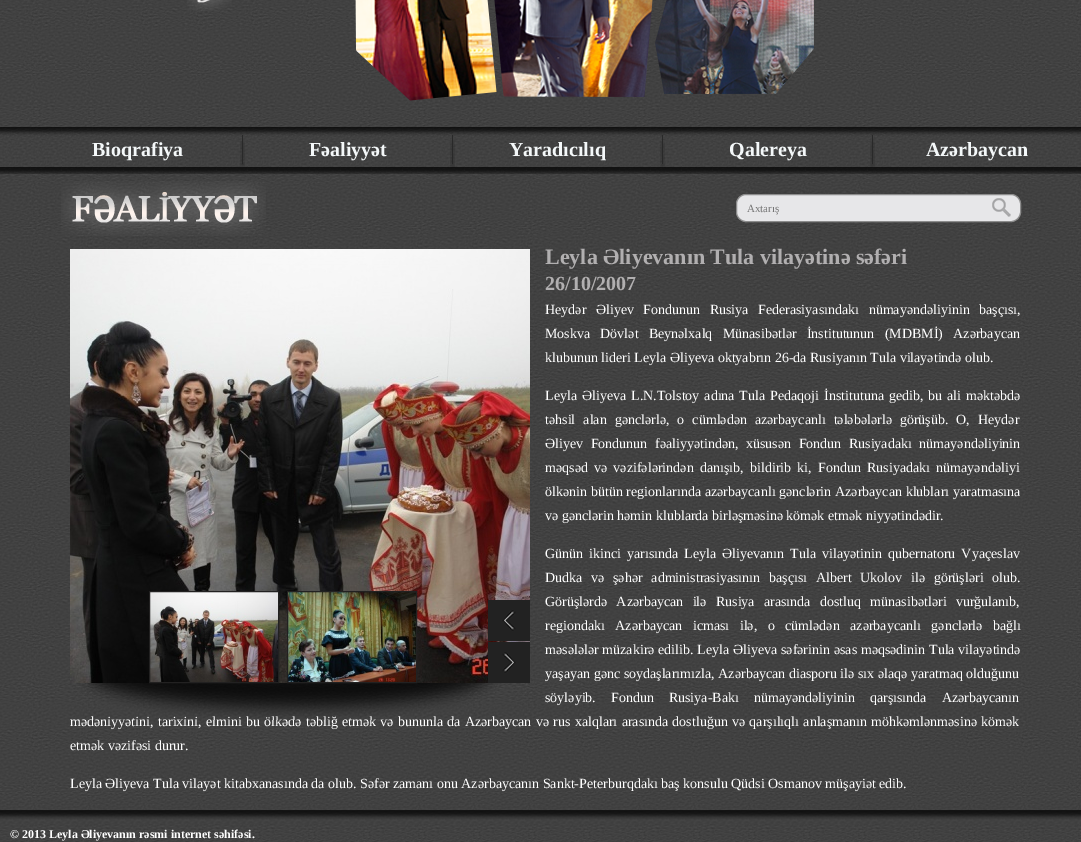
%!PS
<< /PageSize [1081 842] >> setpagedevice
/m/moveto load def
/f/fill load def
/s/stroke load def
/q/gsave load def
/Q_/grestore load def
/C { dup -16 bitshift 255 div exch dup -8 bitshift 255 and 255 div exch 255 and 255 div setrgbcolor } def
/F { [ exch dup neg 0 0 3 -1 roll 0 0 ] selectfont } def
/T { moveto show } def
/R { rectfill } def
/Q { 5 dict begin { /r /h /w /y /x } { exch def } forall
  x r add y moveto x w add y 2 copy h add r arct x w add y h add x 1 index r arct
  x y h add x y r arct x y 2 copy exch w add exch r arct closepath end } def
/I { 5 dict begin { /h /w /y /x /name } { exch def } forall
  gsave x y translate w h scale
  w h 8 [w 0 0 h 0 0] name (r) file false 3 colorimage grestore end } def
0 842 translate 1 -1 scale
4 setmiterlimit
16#FFFFFF C
0 0 1081 842 R
(1.rgb) 0 0 1081 842 I
(2.rgb) 187 0 45 11 I
(3.rgb) 355 0 459 101 I
(4.rgb) 0 127 1081 47 I
(5.rgb) 240 135 5 32 I
/LiberationSerif-Bold 20 F
16#F4F8F9 C
(Bioqrafiya) 92 156 T
(6.rgb) 450 135 5 32 I
(Fəaliyyət) 309 156 T
(7.rgb) 660 135 5 32 I
(Yaradıcılıq) 509 156 T
(8.rgb) 870 135 5 32 I
(Qalereya) 729 156 T
(Azərbaycan) 926 156 T
(9.rgb) 61 181 205 55 I
16#E7E7E9 C
736.5 194.5 284 27 9.5 Q q f Q_
16#8C8C8C C
s
/LiberationSerif-Regular 11 F
16#757575 C
(Axtarış) 747 212 T
(10.rgb) 992 198 19 19 I
/LiberationSerif-Bold 22 F
16#B1AFB0 C
(Leyla Əliyevanın Tula vilayətinə səfəri) 545 264 T
/LiberationSerif-Bold 20 F
(26/10/2007) 545 290 T
/LiberationSerif-Regular 14 F
16#FFFFFF C
545 314 m 6 0 32 (Heydər Əliyev Fondunun Rusiya Federasiyasındakı nümayəndəliyinin başçısı,) widthshow
545 338 m 6.75 0 32 (Moskva Dövlət Beynəlxalq Münasibətlər İnstitutunun \(MDBMİ\) Azərbaycan) widthshow
(klubunun lideri Leyla Əliyeva oktyabrın 26-da Rusiyanın Tula vilayətində olub.) 545 362 T
545 400 m 1.4 0 32 (Leyla Əliyeva L.N.Tolstoy adına Tula Pedaqoji İnstitutuna gedib, bu ali məktəbdə) widthshow
545 424 m 4.5 0 32 (təhsil alan gənclərlə, o cümlədən azərbaycanlı tələbələrlə görüşüb. O, Heydər) widthshow
545 448 m 4 0 32 (Əliyev Fondunun fəaliyyətindən, xüsusən Fondun Rusiyadakı nümayəndəliyinin) widthshow
545 472 m 2.75 0 32 (məqsəd və vəzifələrindən danışıb, bildirib ki, Fondun Rusiyadakı nümayəndəliyi) widthshow
545 496 m .25 0 32 (ölkənin bütün regionlarında azərbaycanlı gənclərin Azərbaycan klubları yaratmasına) widthshow
(və gənclərin həmin klublarda birləşməsinə kömək etmək niyyətindədir.) 545 520 T
545 558 m 2.5 0 32 (Günün ikinci yarısında Leyla Əliyevanın Tula vilayətinin qubernatoru Vyaçeslav) widthshow
545 582 m 5.25 0 32 (Dudka və şəhər administrasiyasının başçısı Albert Ukolov ilə görüşləri olub.) widthshow
545 606 m 5.75 0 32 (Görüşlərdə Azərbaycan ilə Rusiya arasında dostluq münasibətləri vurğulanıb,) widthshow
545 630 m 7 0 32 (regiondakı Azərbaycan icması ilə, o cümlədən azərbaycanlı gənclərlə bağlı) widthshow
545 654 m .25 0 32 (məsələlər müzakirə edilib. Leyla Əliyeva səfərinin əsas məqsədinin Tula vilayətində) widthshow
(yaşayan gənc soydaşlarımızla, Azərbaycan diasporu ilə sıx əlaqə yaratmaq olduğunu) 545 678 T
545 702 m 11.5 0 32 (söyləyib. Fondun Rusiya-Bakı nümayəndəliyinin qarşısında Azərbaycanın) widthshow
70 726 m .75 0 32 (mədəniyyətini, tarixini, elmini bu ölkədə təbliğ etmək və bununla da Azərbaycan və rus xalqları arasında dostluğun və qarşılıqlı anlaşmanın möhkəmlənməsinə kömək) widthshow
(etmək vəzifəsi durur.) 70 750 T
(Leyla Əliyeva Tula vilayət kitabxanasında da olub. Səfər zamanı onu Azərbaycanın Sankt-Peterburqdakı baş konsulu Qüdsi Osmanov müşayiət edib.) 70 788 T
(11.rgb) 70 249 460 434 I
(12.rgb) 77 683 424 37 I
(13.rgb) 150 592 128 90 I
16#222121 C
149.5 591.5 129 91 rectstroke
(14.rgb) 288 592 128 90 I
287.5 591.5 129 91 rectstroke
(15.rgb) 488 600 42 41 I
(16.rgb) 488 642 42 41 I
(17.rgb) 0 810 1081 14 I
/LiberationSerif-Bold 12 F
16#FFFFFF C
(© 2013 Leyla Əliyevanın rəsmi internet səhifəsi.) 10 838 T
showpage
